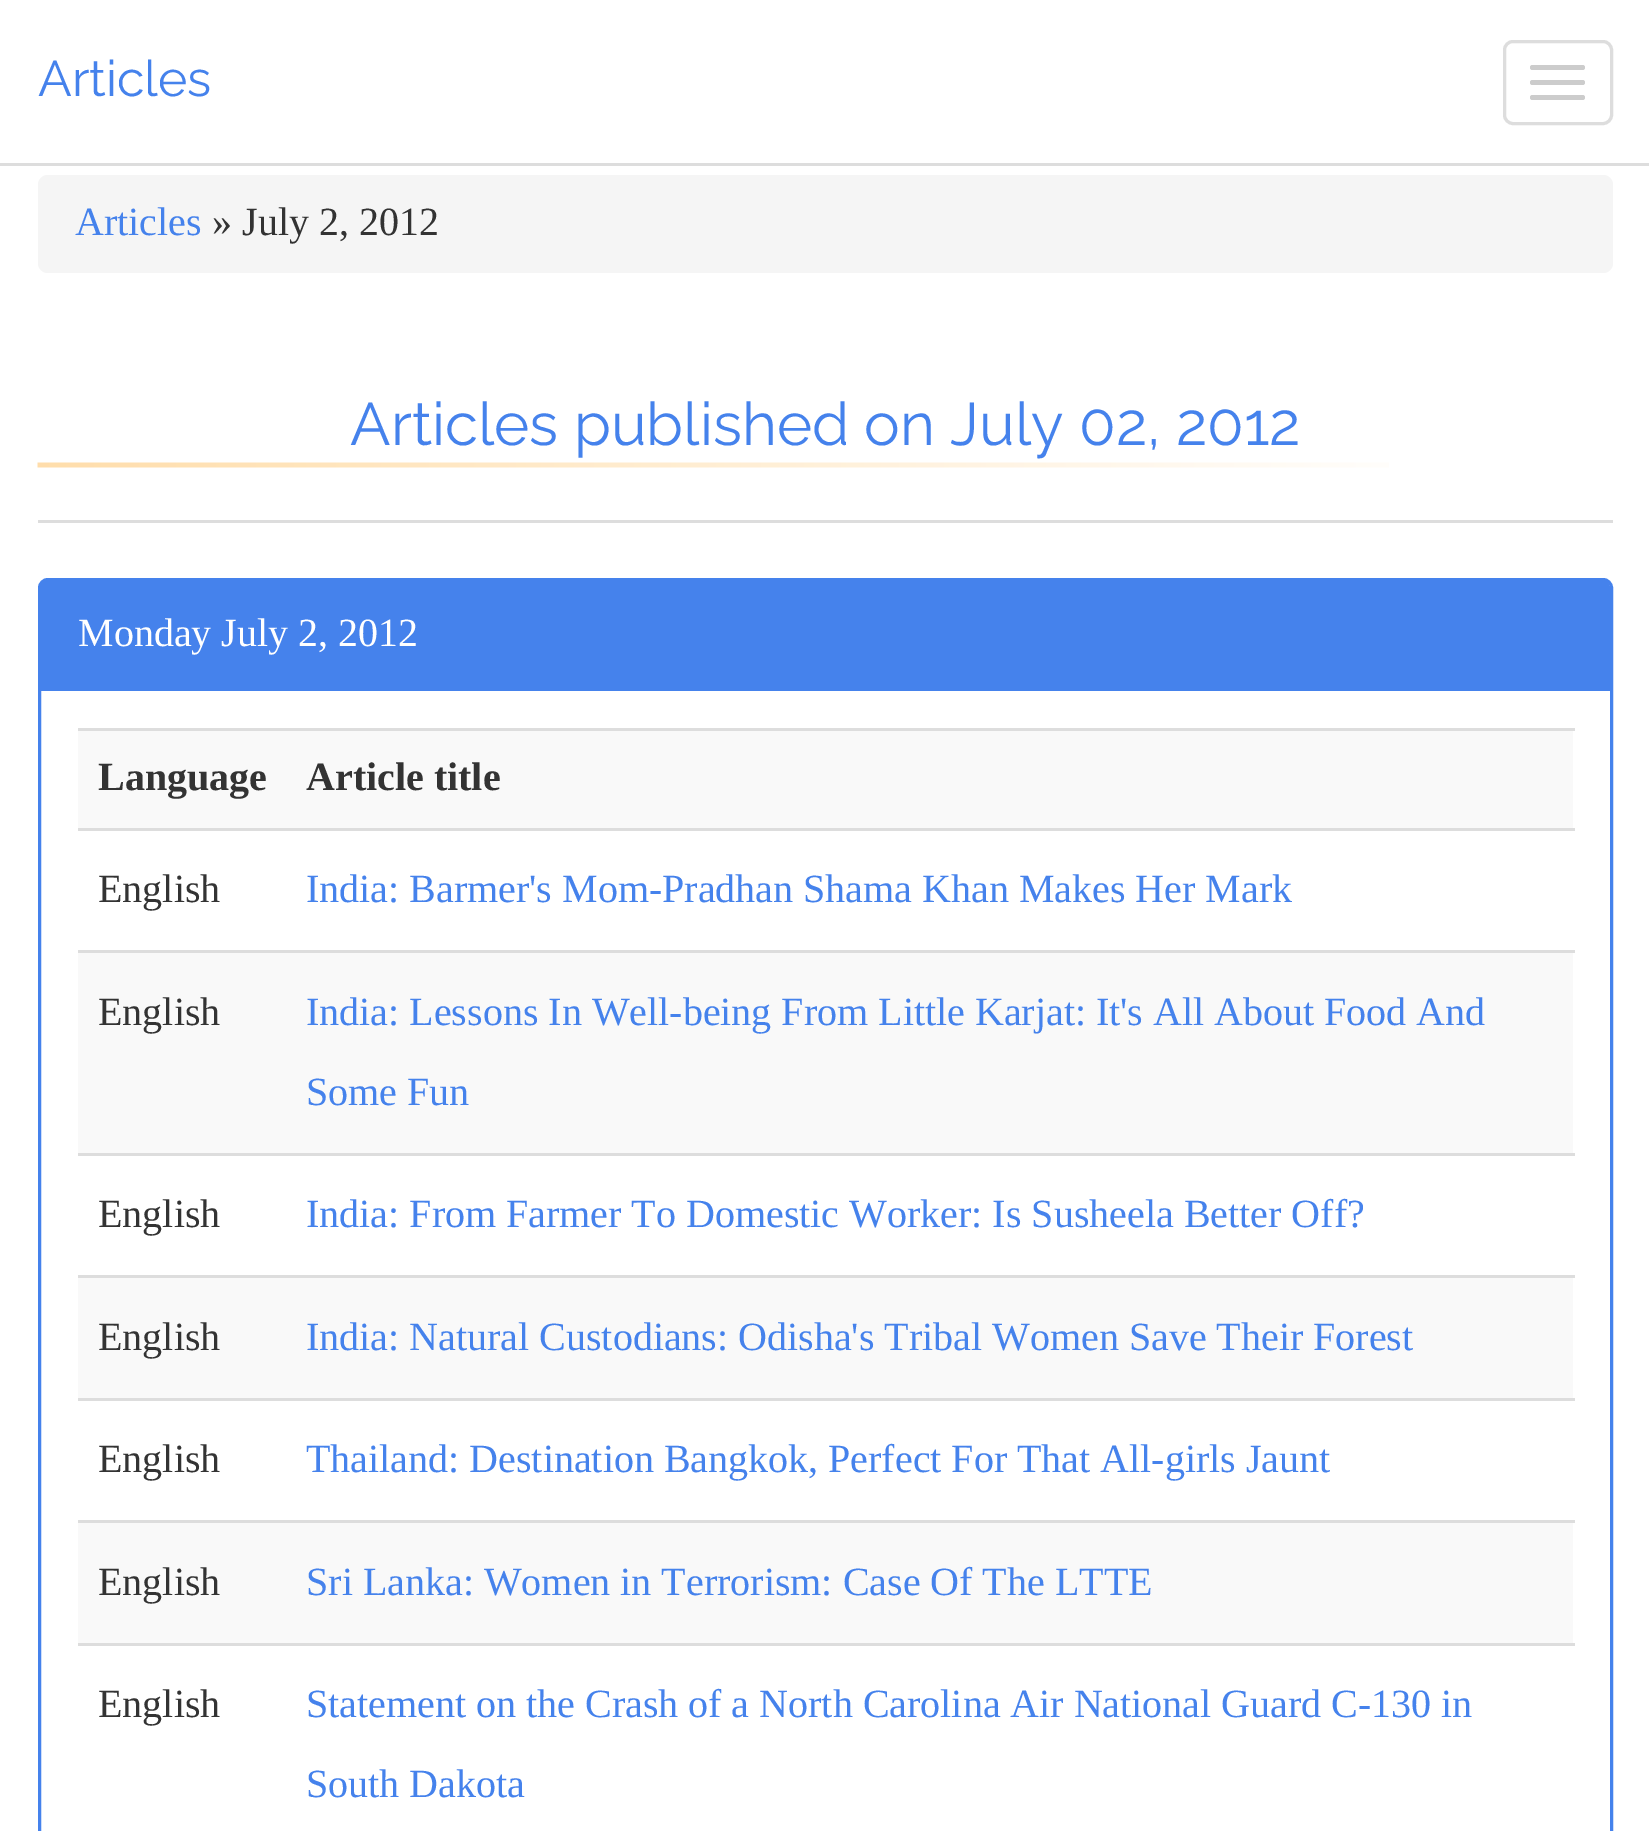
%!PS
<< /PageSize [1649 1831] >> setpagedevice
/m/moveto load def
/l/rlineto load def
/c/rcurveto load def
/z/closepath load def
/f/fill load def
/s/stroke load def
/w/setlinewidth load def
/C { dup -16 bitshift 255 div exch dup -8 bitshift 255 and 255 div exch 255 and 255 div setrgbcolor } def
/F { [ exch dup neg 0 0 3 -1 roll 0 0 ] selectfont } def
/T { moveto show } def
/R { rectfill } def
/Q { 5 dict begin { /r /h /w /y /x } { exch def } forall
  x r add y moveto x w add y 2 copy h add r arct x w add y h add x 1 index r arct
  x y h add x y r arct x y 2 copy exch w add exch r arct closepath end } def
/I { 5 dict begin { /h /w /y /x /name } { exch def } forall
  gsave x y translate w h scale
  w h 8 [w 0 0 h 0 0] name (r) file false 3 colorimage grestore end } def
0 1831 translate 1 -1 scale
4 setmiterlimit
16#FFFFFF C
0 0 1649 1831 R
16#DDDDDD C
0 163 1649 3 R
/Raleway-Regular 50 F
16#4582EC C
(Articles) 38 96 T
16#DDDDDD C
3 w
1504.5 41.5 107 82 8.5 Q s
16#CCCCCC C
1530 65 55 5 2.5 Q f
1530 80 55 5 2.5 Q f
1530 95 55 5 2.5 Q f
16#F5F5F5 C
38 175 1575 98 10 Q f
/LiberationSerif-Regular 40 F
16#4582EC C
(Articles) 75 235 T
16#333333 C
(» July 2, 2012) 212 235 T
16#DDDDDD C
38 520 1575 3 R
(1.rgb) 37 462 1352 6 I
/Raleway-Regular 60 F
16#4582EC C
(Articles published on July 02, 2012) 350 445 T
39.5 579.5 1572 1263 8.5 Q s
48 580 m 1554 0 l 4.5 0 8 3.5 8 8 c 0 102 l -1570 0 l 0 -102 l 0 -4.5 3.5 -8 8 -8 c z f
40 690 1570 1 R
/LiberationSerif-Regular 40 F
16#FFFFFF C
(Monday July 2, 2012) 78 646 T
16#F9F9F9 C
78 731 1495 97 R
/LiberationSerif-Bold 40 F
16#333333 C
(Language) 98 790 T
16#DDDDDD C
78 728 1497 3 R
16#333333 C
(Article title) 306 790 T
/LiberationSerif-Regular 40 F
(English) 98 902 T
16#DDDDDD C
78 828 1497 3 R
16#4582EC C
(India: Barmer's Mom-Pradhan Shama Khan Makes Her Mark) 306 902 T
16#F9F9F9 C
78 953 1495 200 R
16#333333 C
(English) 98 1025 T
16#DDDDDD C
78 950 1497 3 R
16#4582EC C
(India: Lessons In Well-being From Little Karjat: It's All About Food And) 306 1025 T
(Some Fun) 306 1105 T
16#333333 C
(English) 98 1227 T
16#DDDDDD C
78 1153 1497 3 R
16#4582EC C
(India: From Farmer To Domestic Worker: Is Susheela Better Off?) 306 1227 T
16#F9F9F9 C
78 1278 1495 120 R
16#333333 C
(English) 98 1350 T
16#DDDDDD C
78 1275 1497 3 R
16#4582EC C
(India: Natural Custodians: Odisha's Tribal Women Save Their Forest) 306 1350 T
16#333333 C
(English) 98 1472 T
16#DDDDDD C
78 1398 1497 3 R
16#4582EC C
(Thailand: Destination Bangkok, Perfect For That All-girls Jaunt) 306 1472 T
16#F9F9F9 C
78 1523 1495 120 R
16#333333 C
(English) 98 1595 T
16#DDDDDD C
78 1520 1497 3 R
16#4582EC C
(Sri Lanka: Women in Terrorism: Case Of The LTTE) 306 1595 T
16#333333 C
(English) 98 1717 T
16#DDDDDD C
78 1643 1497 3 R
16#4582EC C
(Statement on the Crash of a North Carolina Air National Guard C-130 in) 306 1717 T
(South Dakota) 306 1797 T
showpage
